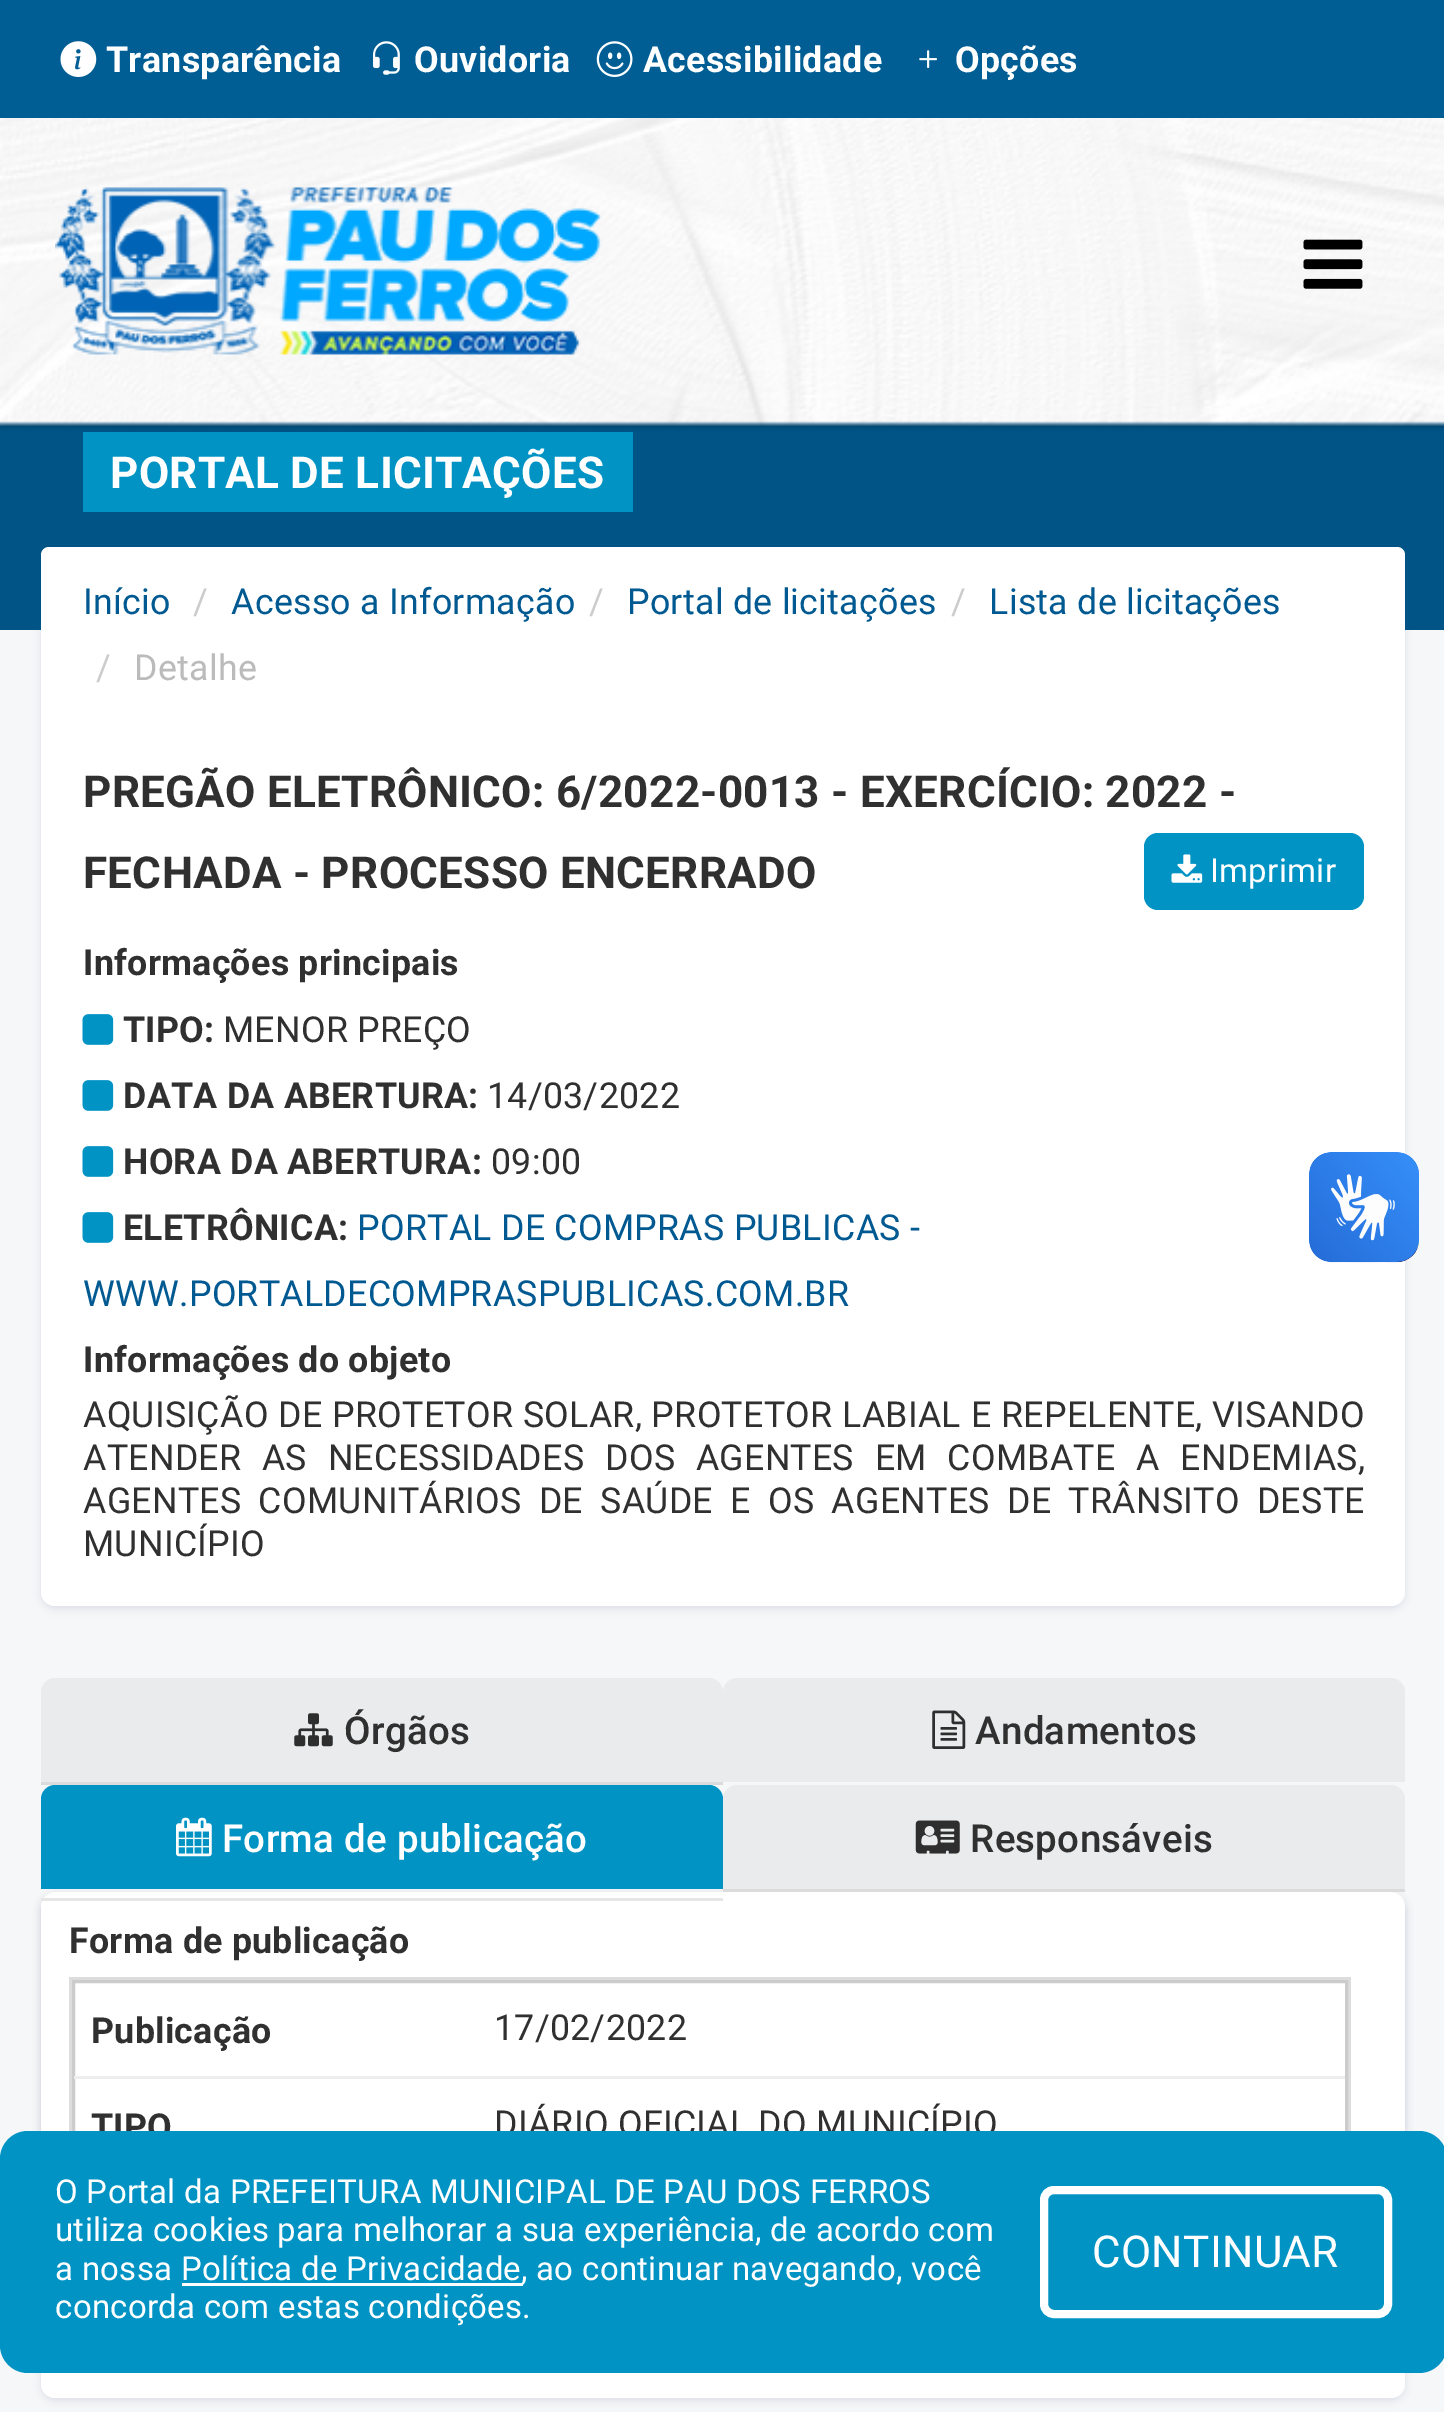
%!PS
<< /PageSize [1444 2412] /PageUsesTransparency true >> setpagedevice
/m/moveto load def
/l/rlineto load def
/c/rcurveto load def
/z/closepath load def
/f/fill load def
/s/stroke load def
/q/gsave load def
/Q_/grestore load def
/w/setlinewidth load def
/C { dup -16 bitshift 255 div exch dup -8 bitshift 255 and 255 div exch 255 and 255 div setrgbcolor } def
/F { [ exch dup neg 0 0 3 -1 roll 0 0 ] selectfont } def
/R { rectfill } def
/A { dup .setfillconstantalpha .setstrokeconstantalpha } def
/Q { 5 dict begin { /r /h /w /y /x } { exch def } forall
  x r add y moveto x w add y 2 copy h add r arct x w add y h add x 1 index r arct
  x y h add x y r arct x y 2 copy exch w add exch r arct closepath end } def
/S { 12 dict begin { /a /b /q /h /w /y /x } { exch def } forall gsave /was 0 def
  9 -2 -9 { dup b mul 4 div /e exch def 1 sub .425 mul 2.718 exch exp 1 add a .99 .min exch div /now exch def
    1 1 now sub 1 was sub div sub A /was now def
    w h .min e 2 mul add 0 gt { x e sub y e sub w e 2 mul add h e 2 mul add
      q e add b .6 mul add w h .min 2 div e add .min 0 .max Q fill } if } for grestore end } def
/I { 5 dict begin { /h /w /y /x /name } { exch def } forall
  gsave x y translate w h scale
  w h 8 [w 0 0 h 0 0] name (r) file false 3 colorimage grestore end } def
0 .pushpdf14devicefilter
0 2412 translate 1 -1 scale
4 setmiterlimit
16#F6F7F8 C
0 0 1444 2412 R
16#030047 C
41 550 1364 1059 14 4 .09 S
16#FFFFFF C
41 547 1364 1059 14 Q f
16#005486 C
0 421 1444 209 R
16#0093C4 C
83 432 550 80 R
q
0 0 m 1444 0 l 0 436 l -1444 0 l z 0 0 m 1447 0 l 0 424 l -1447 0 l z eoclip newpath
16#000000 C
0 3 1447 423 0 3 .3 S
Q_
(1.rgb) 0 118 1444 308 I
16#005E95 C
0 0 1444 118 R
(2.rgb) 60 41 37 36 I
/Roboto-Bold 35.75 F
16#FFFFFF C
106 72 m .28 0 (Transparência) ashow
(3.rgb) 373 41 27 34 I
414 72 m .28 0 (Ouvidoria) ashow
(4.rgb) 596 41 37 36 I
643 72 m .28 0 (Acessibilidade) ashow
(5.rgb) 919 50 18 18 I
955 72 m .28 0 (Opções) ashow
(6.rgb) 55 187 547 168 I
(7.rgb) 1303 239 60 50 I
/Roboto-Bold 44 F
110 488 m .28 0 (PORTAL DE LICITAÇÕES) ashow
41 547 1364 176 8 Q f
/Roboto-Regular 35.75 F
16#005A91 C
83 614 m .28 0 (Início) ashow
16#CCCCCC C
193 614 m .28 0 (/) ashow
16#005A91 C
231 614 m .28 0 (Acesso a Informação) ashow
16#CCCCCC C
589 614 m .28 0 (/) ashow
16#005A91 C
627 614 m .28 0 (Portal de licitações) ashow
16#CCCCCC C
951 614 m .28 0 (/) ashow
16#005A91 C
989 614 m .28 0 (Lista de licitações) ashow
16#CCCCCC C
96 680 m .28 0 (/) ashow
16#BBBBBB C
134 680 m .28 0 (Detalhe) ashow
/Roboto-Bold 44 F
16#303030 C
83 807 m .28 0 (PREGÃO ELETRÔNICO: 6/2022-0013 - EXERCÍCIO: 2022 -) ashow
83 888 m .28 0 (FECHADA - PROCESSO ENCERRADO) ashow
16#0093C4 C
1144 833 220 77 14 Q f
(8.rgb) 1171 854 32 29 I
/Roboto-Regular 33 F
16#FFFFFF C
1210 882 m .28 0 (Imprimir) ashow
/Roboto-Bold 35.75 F
16#303030 C
83 975 m .28 0 (Informações principais) ashow
(9.rgb) 82 1014 32 31 I
123 1042 m .28 0 (TIPO:) ashow
/Roboto-Regular 35.75 F
223 1042 m .28 0 (MENOR PREÇO) ashow
(9.rgb) 82 1080 32 31 I
/Roboto-Bold 35.75 F
123 1108 m .28 0 (DATA DA ABERTURA:) ashow
/Roboto-Regular 35.75 F
487 1108 m .28 0 (14/03/2022) ashow
(9.rgb) 82 1146 32 31 I
/Roboto-Bold 35.75 F
123 1174 m .28 0 (HORA DA ABERTURA:) ashow
/Roboto-Regular 35.75 F
491 1174 m .28 0 (09:00) ashow
(9.rgb) 82 1212 32 31 I
/Roboto-Bold 35.75 F
123 1240 m .28 0 (ELETRÔNICA:) ashow
/Roboto-Regular 35.75 F
16#005A91 C
357 1240 m .28 0 (PORTAL DE COMPRAS PUBLICAS -) ashow
83 1306 m .28 0 (WWW.PORTALDECOMPRASPUBLICAS.COM.BR) ashow
/Roboto-Bold 35.75 F
16#303030 C
83 1372 m .28 0 (Informações do objeto) ashow
/Roboto-Regular 35.75 F
83 1427 m .5 0 32 .28 0 (AQUISIÇÃO DE PROTETOR SOLAR, PROTETOR LABIAL E REPELENTE, VISANDO) awidthshow
83 1470 m 11.5 0 32 .28 0 (ATENDER AS NECESSIDADES DOS AGENTES EM COMBATE A ENDEMIAS,) awidthshow
83 1513 m 8 0 32 .28 0 (AGENTES COMUNITÁRIOS DE SAÚDE E OS AGENTES DE TRÂNSITO DESTE) awidthshow
83 1556 m .28 0 (MUNICÍPIO) ashow
16#DBDBDB C
41 1782 682 3 R
16#EAEBEC C
55 1678 m 654 0 l 7.5 0 14 6.5 14 14 c 0 90 l -682 0 l 0 -90 l 0 -7.5 6.5 -14 14 -14 c z f
(10.rgb) 294 1713 39 34 I
/Roboto-Medium 38.5 F
16#303030 C
344 1744 m .28 0 (Órgãos) ashow
16#EAEBEC C
737 1678 m 654 0 l 7.5 0 14 6.5 14 14 c 0 90 l -682 0 l 0 -90 l 0 -7.5 6.5 -14 14 -14 c z f
(11.rgb) 932 1710 34 39 I
16#303030 C
975 1744 m .28 0 (Andamentos) ashow
16#030047 C
41 1895 1364 506 14 4 .09 S
16#FFFFFF C
41 1892 1364 506 14 Q f
16#030047 C
41 1895 1364 465 17 4 .09 S
16#FFFFFF C
41 1892 1364 465 17 Q f
16#E6E6E6 C
41 1898 682 3 R
16#0093C4 C
55 1785 m 654 0 l 7.5 0 14 6.5 14 14 c 0 90 l -682 0 l 0 -90 l 0 -7.5 6.5 -14 14 -14 c z f
(12.rgb) 176 1817 36 40 I
16#FFFFFF C
222 1852 m .28 0 (Forma de publicação) ashow
16#DBDBDB C
723 1889 682 3 R
16#EAEBEC C
737 1785 m 654 0 l 7.5 0 14 6.5 14 14 c 0 90 l -682 0 l 0 -90 l 0 -7.5 6.5 -14 14 -14 c z f
(13.rgb) 915 1820 45 34 I
16#303030 C
970 1852 m .28 0 (Responsáveis) ashow
/Roboto-Bold 35.75 F
69 1953 m .28 0 (Forma de publicação) ashow
16#DDDDDD C
69 1977 1281 3 R
1348 1977 3 154 R
69 1977 3 154 R
16#CCCCCC C
3 w
73.5 1981.5 1273 291 rectstroke
16#EEEEEE C
74 2076 1271 3 R
16#303030 C
91 2043 m .28 0 (Publicação) ashow
/Roboto-Regular 35.75 F
494 2040 m .28 0 (17/02/2022) ashow
/Roboto-Bold 35.75 F
91 2139 m .28 0 (TIPO) ashow
/Roboto-Regular 35.75 F
494 2136 m .28 0 (DIÁRIO OFICIAL DO MUNICÍPIO) ashow
(14.rgb) 1309 1152 110 111 I
(15.rgb) 1309 1152 110 110 I
16#0093C4 C
0 2131 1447 242 28 Q f
/Roboto-Regular 33 F
16#FFFFFF C
55 2203 m .28 0 (O Portal da PREFEITURA MUNICIPAL DE PAU DOS FERROS) ashow
55 2241 m .28 0 (utiliza cookies para melhorar a sua experiência, de acordo com) ashow
55 2280 m .28 0 (a nossa Política de Privacidade) ashow
182 2283 341 3 R
521 2280 m .28 0 (, ao continuar navegando, você) ashow
55 2318 m .28 0 (concorda com estas condições.) ashow
8 w
1044 2190 344 124 10 Q s
/Roboto-Regular 44 F
1092 2267 m .28 0 (CONTINUAR) ashow
.poppdf14devicefilter showpage
